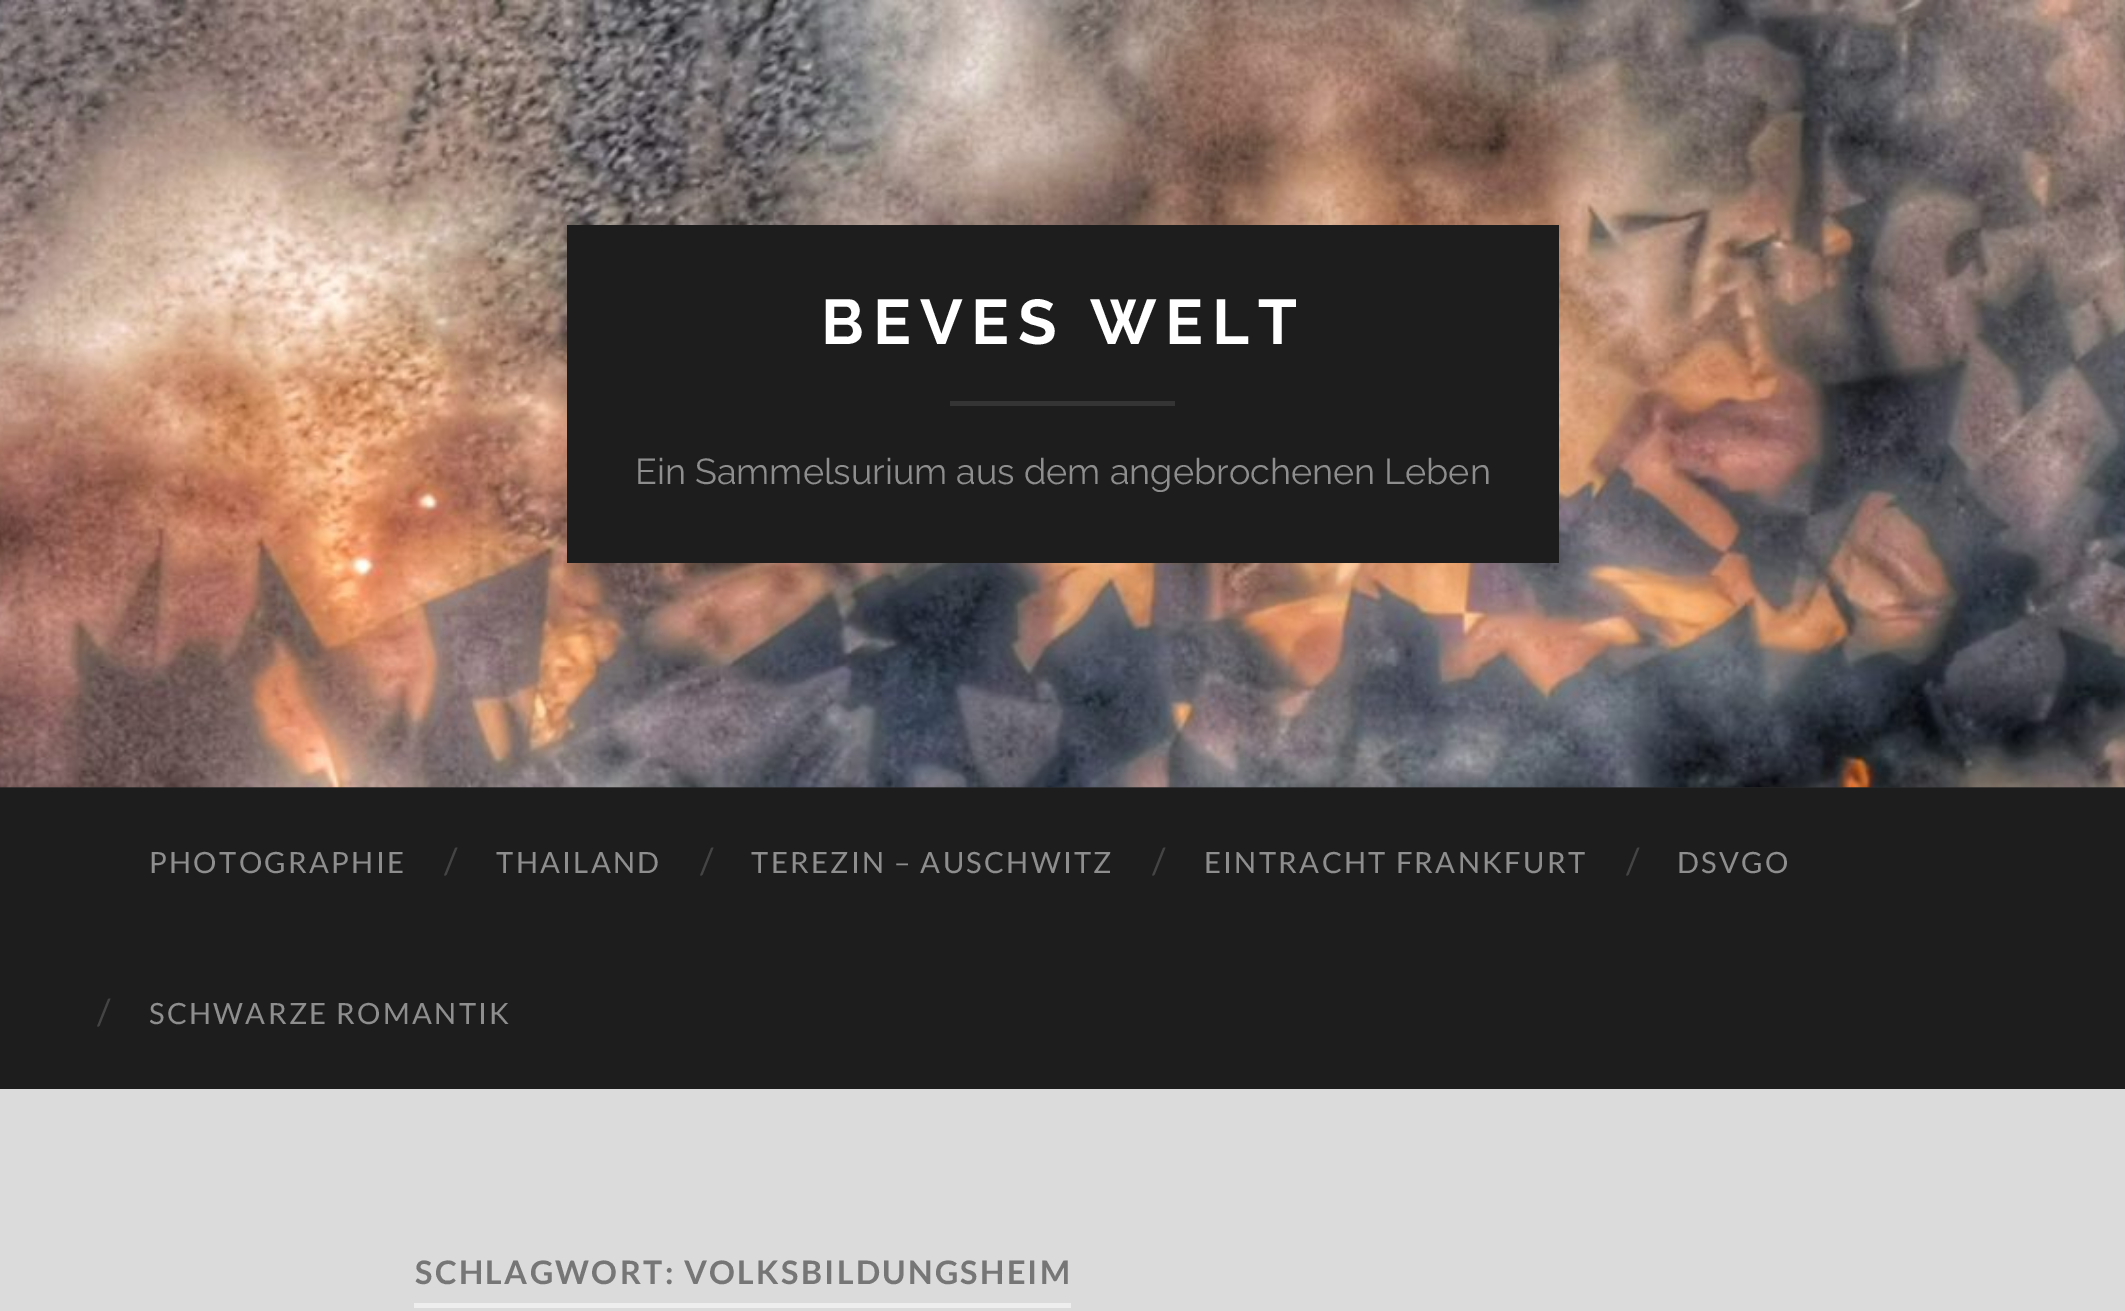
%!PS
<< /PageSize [2125 1311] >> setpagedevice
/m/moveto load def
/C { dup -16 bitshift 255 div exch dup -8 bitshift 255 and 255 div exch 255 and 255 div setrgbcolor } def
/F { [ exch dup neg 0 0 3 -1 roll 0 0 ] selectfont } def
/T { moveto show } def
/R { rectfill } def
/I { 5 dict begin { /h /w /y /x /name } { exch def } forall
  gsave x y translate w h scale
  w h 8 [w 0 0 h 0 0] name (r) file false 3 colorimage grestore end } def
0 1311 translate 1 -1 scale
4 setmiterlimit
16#DBDBDB C
0 0 2125 1311 R
16#262626 C
0 787 2125 1 R
(1.rgb) 0 0 2125 788 I
16#1D1D1D C
567 225 992 338 R
/Raleway-Thin 63 F
16#FFFFFF C
821 344 m 9 0 (BEVES WELT) ashow
16#343434 C
950 401 225 5 R
/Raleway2-Thin 36 F
16#8E8E8E C
(Ein Sammelsurium aus dem angebrochenen Leben) 635 484 T
16#1D1D1D C
0 788 2125 301 R
/Lato-Regular 29.25 F
16#8E8E8E C
149 873 m 2.25 0 (PHOTOGRAPHIE) ashow
/Lato-Regular 36 F
16#444444 C
(/) 444 874 T
/Lato-Regular 29.25 F
16#8E8E8E C
496 873 m 2.25 0 (THAILAND) ashow
/Lato-Regular 36 F
16#444444 C
(/) 700 874 T
/Lato-Regular 29.25 F
16#8E8E8E C
751 873 m 2.25 0 (TEREZIN – AUSCHWITZ) ashow
/Lato-Regular 36 F
16#444444 C
(/) 1152 874 T
/Lato-Regular 29.25 F
16#8E8E8E C
1204 873 m 2.25 0 (EINTRACHT FRANKFURT) ashow
/Lato-Regular 36 F
16#444444 C
(/) 1626 874 T
/Lato-Regular 29.25 F
16#8E8E8E C
1677 873 m 2.25 0 (DSVGO) ashow
/Lato-Regular 36 F
16#444444 C
(/) 97 1025 T
/Lato-Regular 29.25 F
16#8E8E8E C
149 1024 m 2.25 0 (SCHWARZE ROMANTIK) ashow
16#EEEEEE C
414 1303 657 5 R
/Lato-Bold 32.4 F
16#767676 C
415 1284 m 2.25 0 (SCHLAGWORT: VOLKSBILDUNGSHEIM) ashow
showpage
